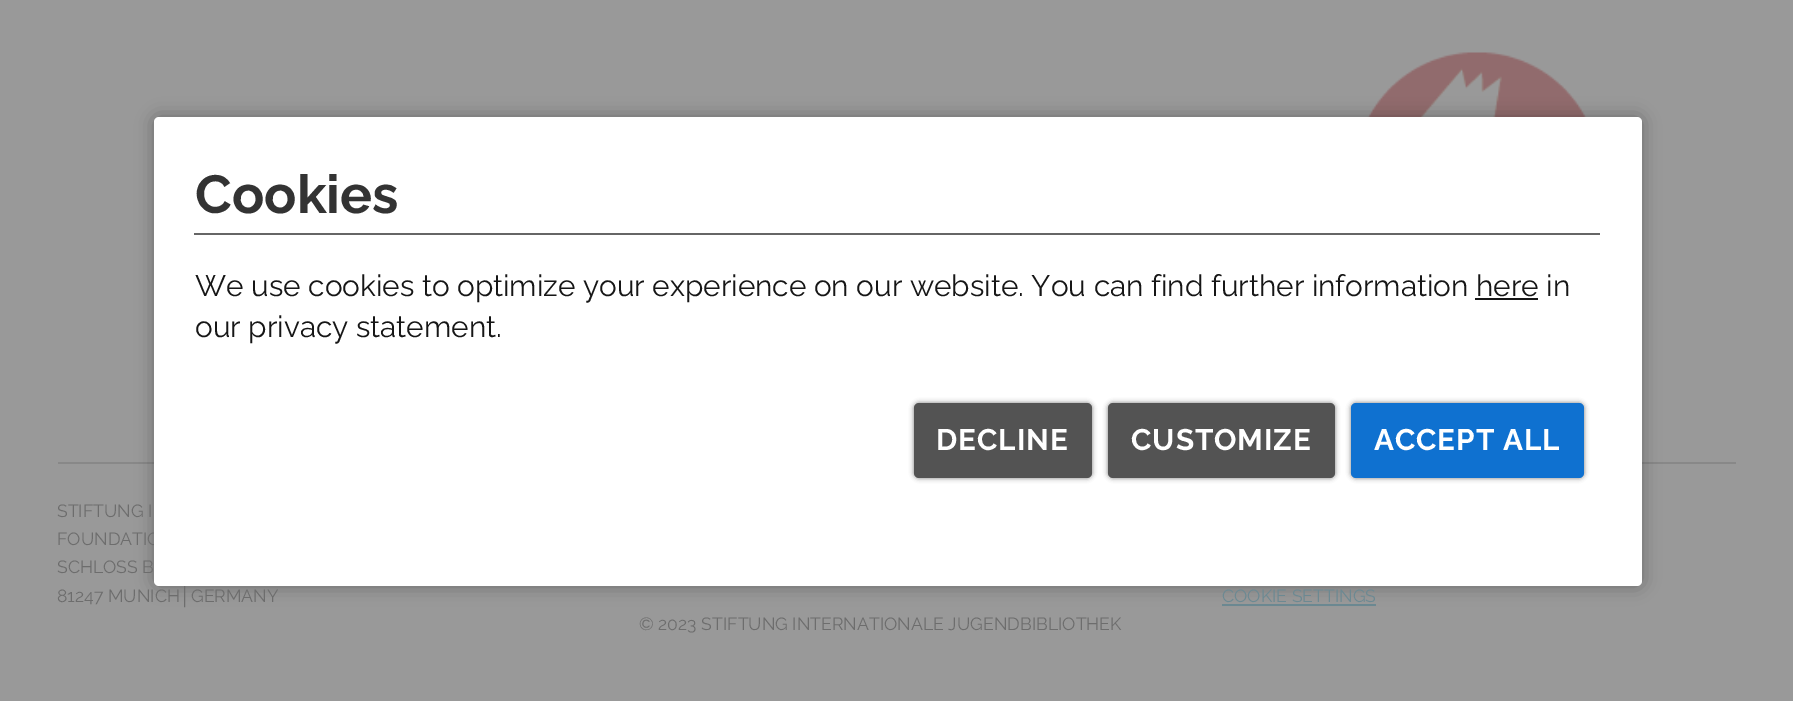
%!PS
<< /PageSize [1793 701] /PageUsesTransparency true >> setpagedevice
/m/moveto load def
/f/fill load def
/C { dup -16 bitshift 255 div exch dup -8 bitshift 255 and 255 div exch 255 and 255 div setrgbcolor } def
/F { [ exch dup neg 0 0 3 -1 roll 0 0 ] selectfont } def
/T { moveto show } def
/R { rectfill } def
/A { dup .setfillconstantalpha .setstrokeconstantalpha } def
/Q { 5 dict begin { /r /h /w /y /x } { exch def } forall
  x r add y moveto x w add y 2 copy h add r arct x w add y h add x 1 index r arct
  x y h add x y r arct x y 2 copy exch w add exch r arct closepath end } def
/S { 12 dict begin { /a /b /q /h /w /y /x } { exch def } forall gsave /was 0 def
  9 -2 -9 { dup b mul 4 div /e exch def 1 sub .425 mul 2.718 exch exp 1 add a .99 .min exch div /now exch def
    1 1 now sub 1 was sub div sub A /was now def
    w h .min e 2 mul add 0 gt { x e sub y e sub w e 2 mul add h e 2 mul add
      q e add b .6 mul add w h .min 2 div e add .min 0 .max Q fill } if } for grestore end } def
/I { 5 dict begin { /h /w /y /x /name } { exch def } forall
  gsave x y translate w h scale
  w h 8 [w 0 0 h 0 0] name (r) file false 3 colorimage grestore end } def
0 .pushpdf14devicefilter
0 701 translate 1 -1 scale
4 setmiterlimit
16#999999 C
0 0 1793 701 R
(1.rgb) 1367 52 220 65 I
16#888888 C
58 462 96 2 R
1642 462 94 2 R
16#6C8992 C
1222 604 154 2 R
16#000000 C
154 117 1488 469 5 9 .3 S
/Raleway-Regular 17.65 F
16#6D6D6D C
(FOUNDATIO) 57 545 T
/LiberationSans-Regular 17.65 F
(│) 180 602 T
16#FFFFFF C
154 117 1488 469 5 Q f
16#666666 C
194 233 1406 2 R
/Raleway-Bold 53.5 F
16#333333 C
(Cookies) 195 213 T
/Raleway-Regular 29.75 F
16#161616 C
(We use cookies to optimize your experience on our website. You can find further information here in) 195 296 T
1475 298 63 2 R
(our privacy statement.) 195 337 T
16#000000 C
914 403 178 75 5 2.5 .5 S
16#535353 C
914 403 178 75 5 Q f
/Raleway-Bold 29.75 F
16#FFFFFF C
936 450 m .9 0 (DECLINE) ashow
16#000000 C
1108 403 227 75 5 2.5 .5 S
16#535353 C
1108 403 227 75 5 Q f
16#FFFFFF C
1131 450 m .9 0 (CUSTOMIZE) ashow
16#000000 C
1351 403 233 75 5 2.5 .5 S
16#0F71D0 C
1351 403 233 75 5 Q f
16#FFFFFF C
1374 450 m .9 0 (ACCEPT ALL) ashow
/Raleway-Regular 17.65 F
16#6D6D6D C
(STIFTUNG I) 57 517 T
(SCHLOSS B) 57 573 T
(81247 MUNICH) 57 602 T
(GERMANY) 191 602 T
16#6C8992 C
(COOKIE SETTINGS) 1222 602 T
16#6D6D6D C
(© 2023 STIFTUNG INTERNATIONALE JUGENDBIBLIOTHEK) 639 630 T
.poppdf14devicefilter showpage
